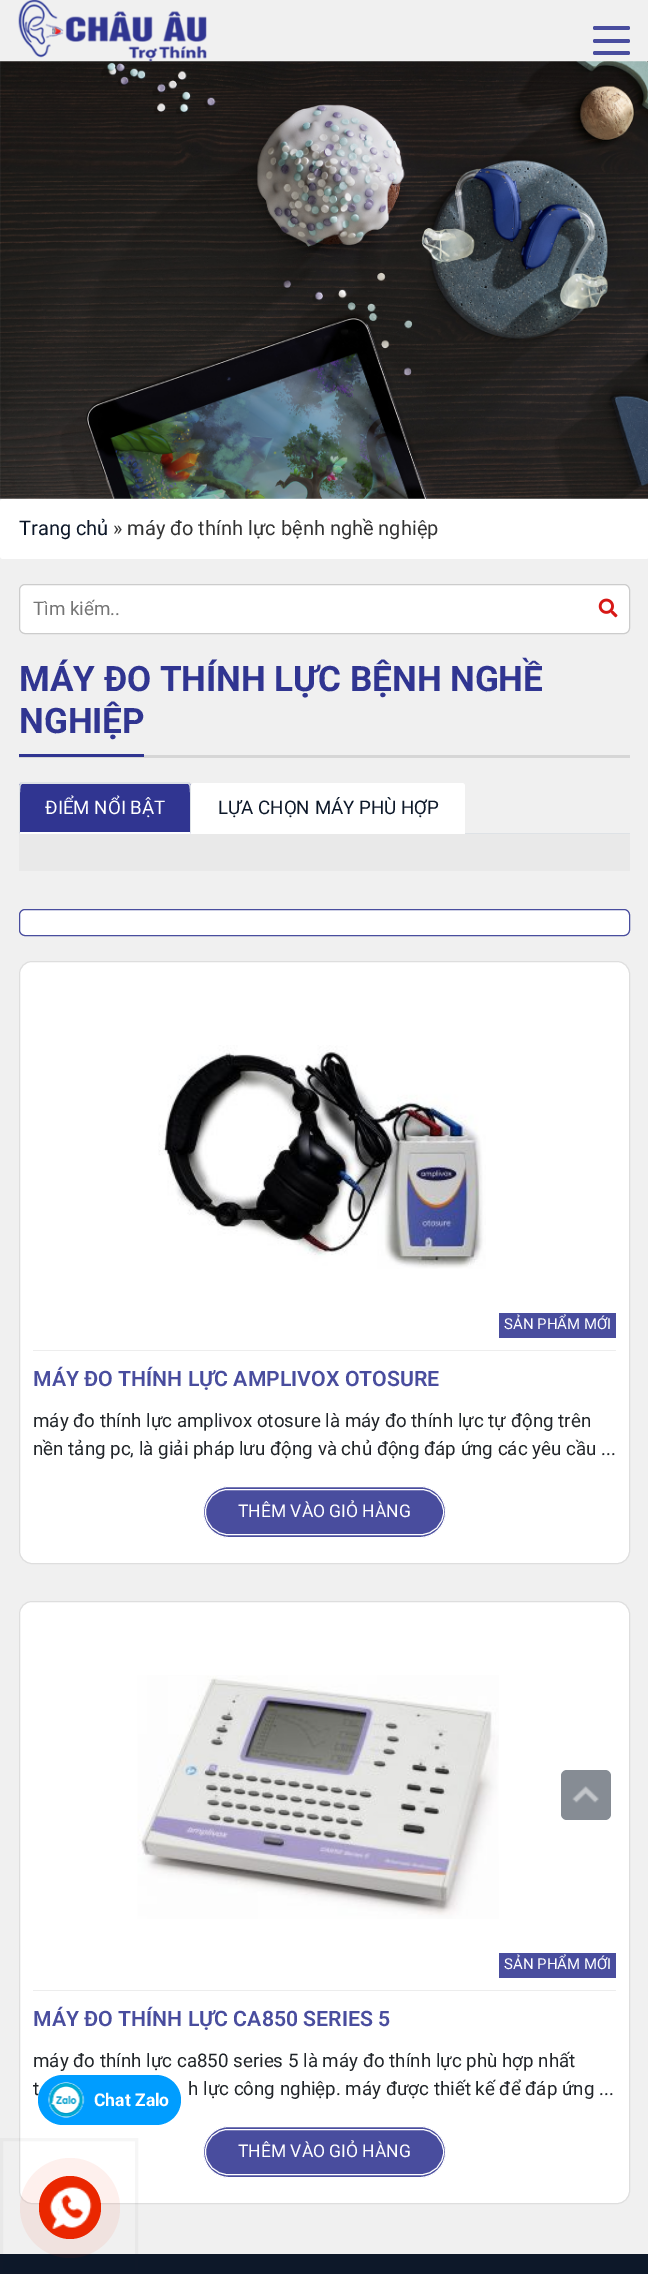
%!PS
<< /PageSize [648 2274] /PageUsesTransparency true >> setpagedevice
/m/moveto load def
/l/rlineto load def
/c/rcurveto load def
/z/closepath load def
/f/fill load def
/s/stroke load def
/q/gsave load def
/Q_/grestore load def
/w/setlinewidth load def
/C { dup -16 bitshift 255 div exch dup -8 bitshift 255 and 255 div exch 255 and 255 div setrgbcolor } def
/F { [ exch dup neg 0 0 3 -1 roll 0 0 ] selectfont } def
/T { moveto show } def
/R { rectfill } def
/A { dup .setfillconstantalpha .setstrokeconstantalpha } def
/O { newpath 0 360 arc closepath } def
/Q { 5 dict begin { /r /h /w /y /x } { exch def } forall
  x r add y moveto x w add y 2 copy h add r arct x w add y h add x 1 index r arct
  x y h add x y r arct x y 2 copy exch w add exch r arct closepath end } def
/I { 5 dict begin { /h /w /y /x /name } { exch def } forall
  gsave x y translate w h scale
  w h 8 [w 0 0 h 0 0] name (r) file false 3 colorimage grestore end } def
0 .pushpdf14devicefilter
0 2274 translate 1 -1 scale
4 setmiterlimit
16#F0F0F0 C
0 0 648 2274 R
(2.rgb) 0 61 648 438 I
(1.rgb) 18 0 189 62 I
16#494D9E C
593 51 37 4 2 Q f
593 26 37 4 2 Q f
593 39 37 4 2 Q f
16#FFFFFF C
0 499 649 60 3 Q f
/Roboto-Regular 20 F
16#0D1829 C
(Trang chủ) 19 535 T
16#333333 C
(» máy đo thính lực bệnh nghề nghiệp) 113 535 T
16#FFFFFF C
19.5 584.5 610 49 5.5 Q q f Q_
16#CCCCCC C
s
/Roboto-Regular 18.75 F
16#757575 C
(Tìm kiếm..) 33 615 T
(3.rgb) 598 598 20 20 I
16#D6D6D6 C
19 755 611 3 R
/Roboto-Bold 35 F
16#303591 C
(MÁY ĐO THÍNH LỰC BỆNH NGHỀ) 19 691 T
(NGHIỆP) 19 733 T
19 754 125 3 R
16#DEE2E6 C
465 833 165 1 R
16#303591 C
22 783 m 166 0 l 1.5 0 3 1.5 3 3 c 0 48 l -172 0 l 0 -48 l 0 -1.5 1.5 -3 3 -3 c z f
16#DEE2E6 C
22 784 m -1 1 l -1 -2 l 0 -1 l 170 0 l 0 1 l -1 2 l -1 -1 l z f
190 783 m 1 3 l 0 48 l -1 -2 l 0 -5 1 -46 -1 -47 c z f
16#FFFFFF C
19 834 m 1 -2 l 170 0 l 1 2 l z f
16#DEE2E6 C
19 834 m 0 -48 l 1 -3 l 1 2 l -2 1 -1 42 -1 47 c z f
/Roboto-Regular 18.75 F
16#FFFFFF C
(ĐIỂM NỔI BẬT) 45 814 T
194 783 m 268 0 l 1.5 0 3 1.5 3 3 c 0 48 l -274 0 l 0 -48 l 0 -1.5 1.5 -3 3 -3 c z f
16#0D1829 C
(LỰA CHỌN MÁY PHÙ HỢP) 218 814 T
16#E9E9E9 C
19 834 611 37 R
16#FFFFFF C
19.5 909.5 610 26 5.5 Q q f Q_
16#494D9E C
s
16#FFFFFF C
19.5 961.5 610 602 12.5 Q q f Q_
16#DEDEDE C
s
16#EDEDED C
33 1350 583 1 R
(4.rgb) 158 1045 328 224 I
16#494D9E C
499 1313 117 25 R
/Roboto-Regular 15 F
16#FFFFFF C
(SẢN PHẨM MỚI) 504 1329 T
/Roboto-SemiBold 21.25 F
16#494D9E C
(MÁY ĐO THÍNH LỰC AMPLIVOX OTOSURE) 33 1386 T
/Roboto-Regular 18.75 F
16#212529 C
(máy đo thính lực amplivox otosure là máy đo thính lực tự động trên) 33 1427 T
(nền tảng pc, là giải pháp lưu động và chủ động đáp ứng các yêu cầu ...) 33 1455 T
16#494D9E C
203.5 1486.5 242 51 25.5 Q q f Q_
16#FFFFFF C
s
205.5 1489.5 238 45 22.5 Q s
/Roboto-Regular 17.5 F
(THÊM VÀO GIỎ HÀNG) 238 1517 T
19.5 1601.5 610 602 12.5 Q q f Q_
16#DEDEDE C
s
16#EDEDED C
33 1990 583 1 R
(5.rgb) 137 1675 362 244 I
16#494D9E C
499 1953 117 25 R
/Roboto-Regular 15 F
16#FFFFFF C
(SẢN PHẨM MỚI) 504 1969 T
/Roboto-SemiBold 21.25 F
16#494D9E C
(MÁY ĐO THÍNH LỰC CA850 SERIES 5) 33 2026 T
/Roboto-Regular 18.75 F
16#212529 C
(máy đo thính lực ca850 series 5 là máy đo thính lực phù hợp nhất) 33 2067 T
(t) 33 2095 T
(h lực công nghiệp. máy được thiết kế để đáp ứng ...) 188 2095 T
16#494D9E C
203.5 2126.5 242 51 25.5 Q q f Q_
16#FFFFFF C
s
205.5 2129.5 238 45 22.5 Q s
/Roboto-Regular 17.5 F
(THÊM VÀO GIỎ HÀNG) 238 2157 T
16#868C94 C
561 1770 50 50 6 Q f
(6.rgb) 572 1786 27 17 I
16#0D1829 C
0 2254 648 20 R
16#009DFF C
38 2075 143 50 25 Q f
(7.rgb) 48 2082 37 36 I
/Roboto-Bold 17.5 F
16#FFFFFF C
(Chat Zalo) 94 2106 T
0.04 A
16#1E1E1E C
3 w
1.5 2139.5 135 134 rectstroke
0.07 A
16#EA2700 C
70 2208 50 O f
1 A
39 2176 62 63 31 Q f
(8.rgb) 49 2186 43 43 I
.poppdf14devicefilter showpage
